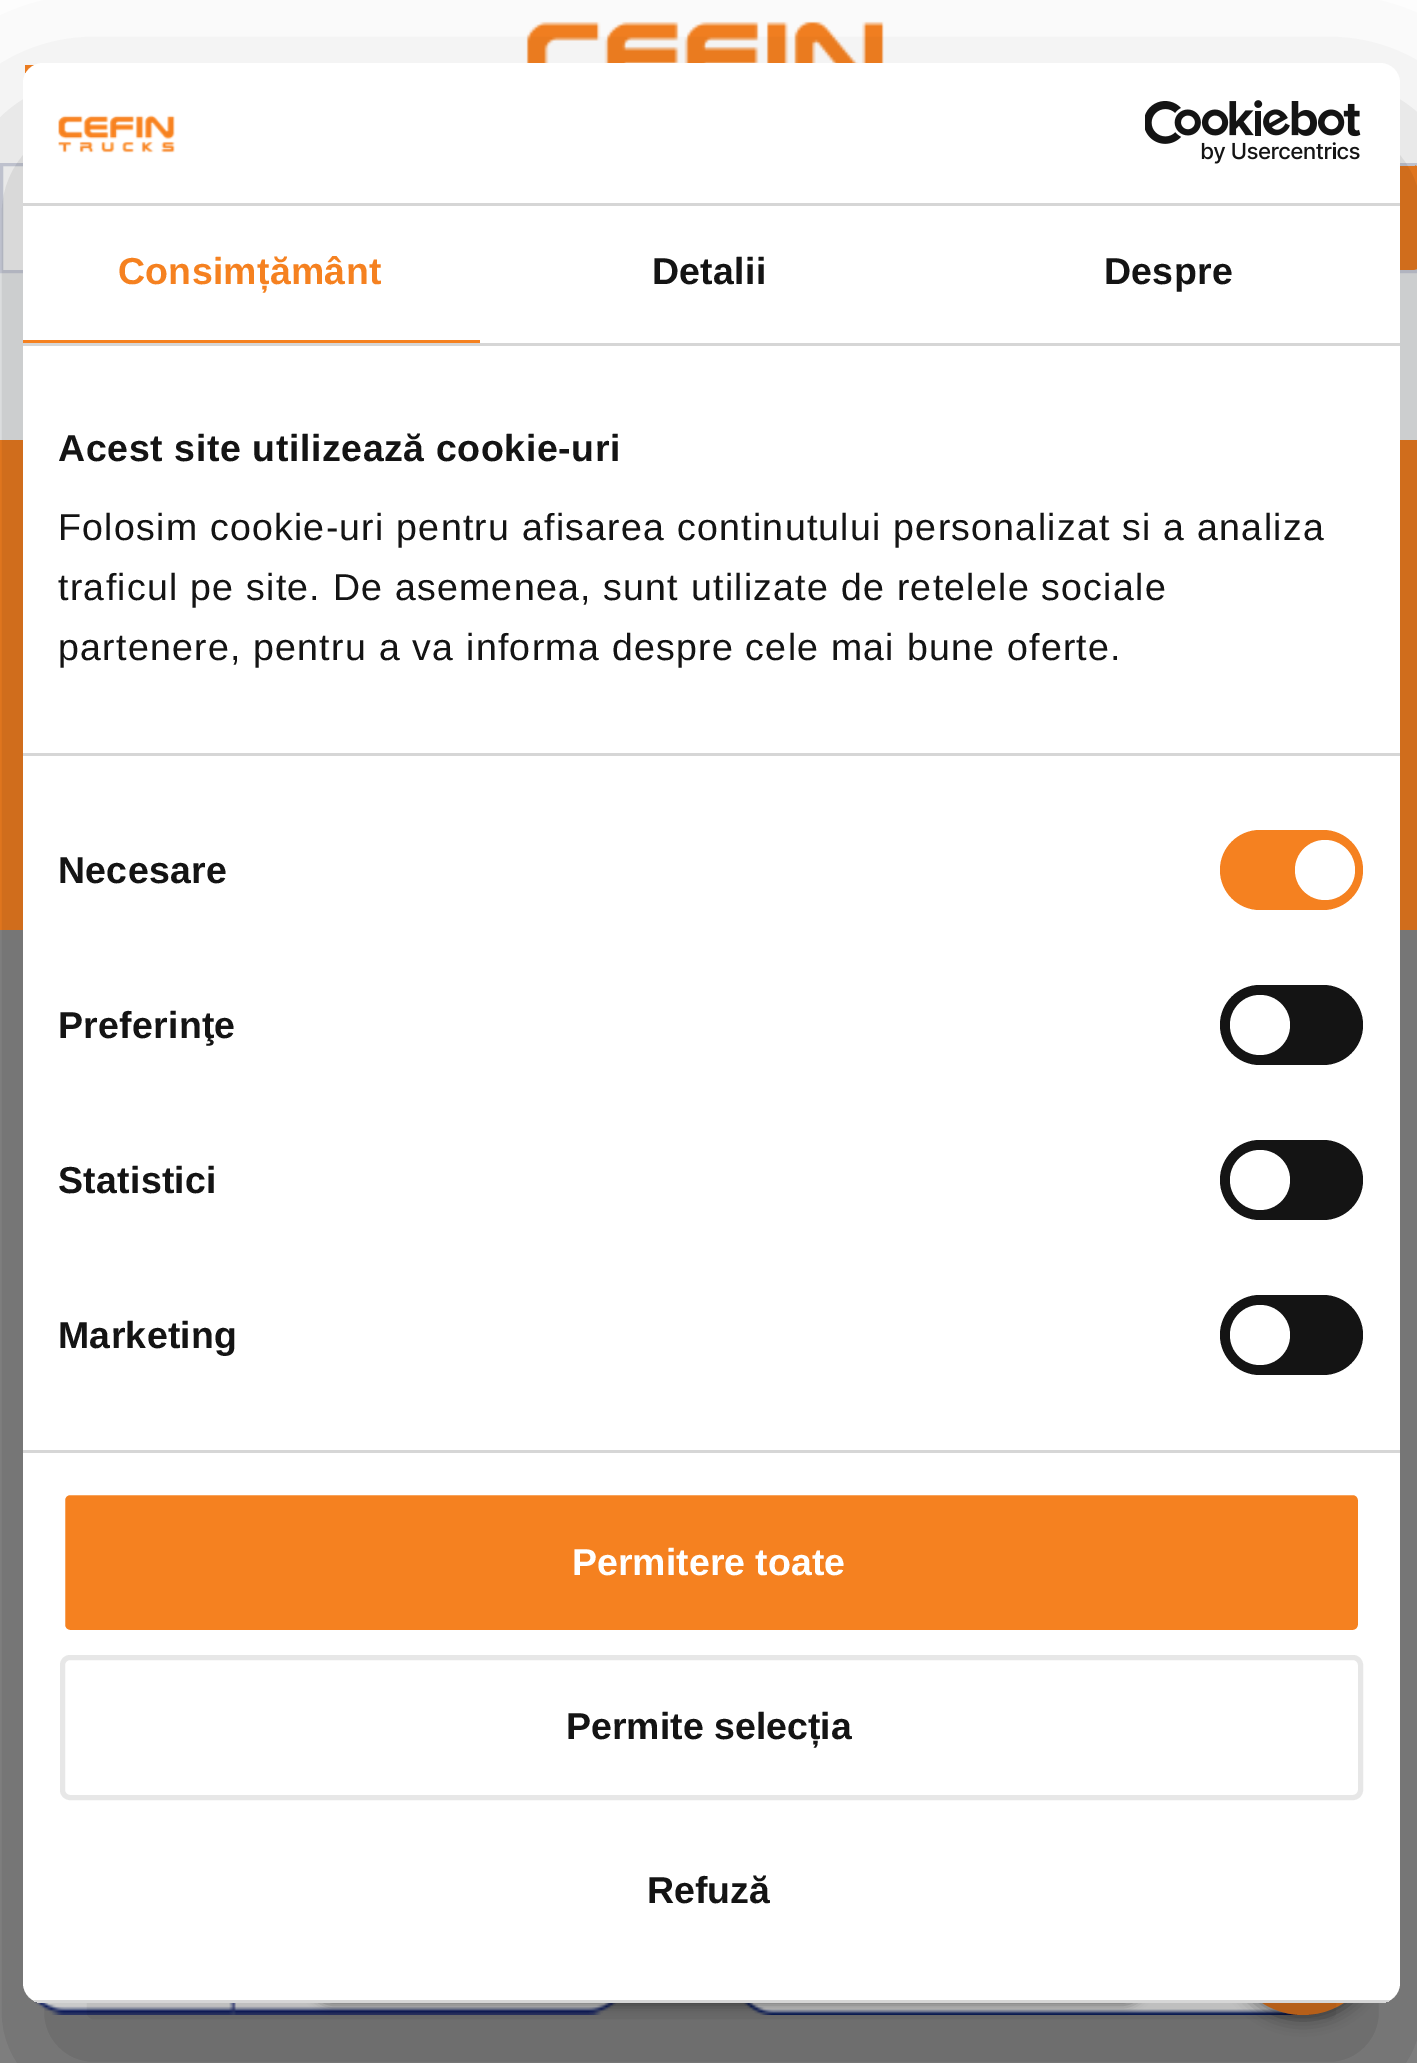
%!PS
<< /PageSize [1417 2063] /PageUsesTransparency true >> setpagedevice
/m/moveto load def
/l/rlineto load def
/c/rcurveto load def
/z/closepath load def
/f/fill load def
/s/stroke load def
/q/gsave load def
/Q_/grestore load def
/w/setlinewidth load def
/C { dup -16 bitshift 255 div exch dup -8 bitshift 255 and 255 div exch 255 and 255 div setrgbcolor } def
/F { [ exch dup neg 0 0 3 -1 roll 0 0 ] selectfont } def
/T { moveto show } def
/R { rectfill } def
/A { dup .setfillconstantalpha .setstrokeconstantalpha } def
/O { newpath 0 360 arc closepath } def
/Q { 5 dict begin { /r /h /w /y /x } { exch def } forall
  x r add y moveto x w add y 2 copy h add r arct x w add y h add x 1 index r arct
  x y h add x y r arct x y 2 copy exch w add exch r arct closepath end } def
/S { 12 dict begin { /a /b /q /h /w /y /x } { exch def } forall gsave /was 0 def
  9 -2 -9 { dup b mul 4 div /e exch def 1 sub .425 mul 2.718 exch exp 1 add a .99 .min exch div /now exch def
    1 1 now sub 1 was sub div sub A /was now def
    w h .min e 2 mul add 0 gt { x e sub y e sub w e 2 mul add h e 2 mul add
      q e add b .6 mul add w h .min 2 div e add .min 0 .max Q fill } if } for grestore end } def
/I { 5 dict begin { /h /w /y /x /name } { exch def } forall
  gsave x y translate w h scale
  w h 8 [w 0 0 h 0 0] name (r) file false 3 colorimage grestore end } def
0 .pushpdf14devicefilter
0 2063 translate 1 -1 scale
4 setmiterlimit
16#F1F3F4 C
0 0 1417 2063 R
16#FFFFFF C
0 0 1417 163 R
(1.rgb) 526 21 358 42 I
16#F58120 C
25 65 10 8 R
16#FFFFFF C
1.5 164.5 m 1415 0 l 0 107 l -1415 0 l z q f Q_
16#D0D4E1 C
3 w
s
16#F58120 C
1280 165 m 132 0 l 3 0 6 1 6 3 c 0 100 l 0 1 -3 2 -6 2 c -132 0 l z f
16#D0D4E1 C
1400 165 15 1 R
16#F58120 C
0 440 1417 490 R
16#8A8A8A C
0 930 1417 1133 R
(2.rgb) 32 1999 586 16 I
(3.rgb) 743 2003 578 12 I
16#000000 C
1228 1870 150 150 75 7.5 .4 S
16#F58120 C
1303 1940 75 O f
q
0 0 m 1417 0 l 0 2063 l -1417 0 l z 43 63 m 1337 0 l 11 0 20 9 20 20 c 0 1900 l 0 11 -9 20 -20 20 c -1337 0 l -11 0 -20 -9 -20 -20 c 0 -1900 l 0 -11 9 -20 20 -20 c z eoclip newpath
16#000000 C
23 143 1377 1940 20 85 .3 S
Q_
16#000000 C
308 1750 840 255 25 5 .4 S
16#FFFFFF C
23 63 1377 1940 20 Q f
16#D6D6D6 C
23 203 1377 3 R
(4.rgb) 58 115 117 38 I
(5.rgb) 1145 100 216 64 I
23 343 1377 3 R
16#F58120 C
23 340 457 3 R
/LiberationSans-Bold 37.5 F
118 284 m .25 0 (Consimțământ) ashow
16#141414 C
652 284 m .25 0 (Detalii) ashow
1104 284 m .25 0 (Despre) ashow
16#D6D6D6 C
23 753 1377 3 R
16#141414 C
58 461 m .6 0 (Acest site utilizează cookie-uri) ashow
/LiberationSans-Regular 37.5 F
58 540 m 1.25 0 (Folosim cookie-uri pentru afisarea continutului personalizat si a analiza) ashow
58 600 m 1.25 0 (traficul pe site. De asemenea, sunt utilizate de retelele sociale) ashow
58 660 m 1.25 0 (partenere, pentru a va informa despre cele mai bune oferte.) ashow
16#D6D6D6 C
23 1450 1377 3 R
/LiberationSans-Bold 37.5 F
16#141414 C
58 883 m .25 0 (Necesare) ashow
16#F58120 C
1220 830 143 80 40 Q f
16#FFFFFF C
1325 870 30 O f
16#141414 C
58 1038 m .25 0 (Preferinţe) ashow
1220 985 143 80 40 Q f
16#FFFFFF C
1260 1025 30 O f
16#141414 C
58 1193 m .25 0 (Statistici) ashow
1220 1140 143 80 40 Q f
16#FFFFFF C
1260 1180 30 O f
16#141414 C
58 1348 m .25 0 (Marketing) ashow
1220 1295 143 80 40 Q f
16#FFFFFF C
1260 1335 30 O f
q
23 63 1377 1940 20 Q clip newpath
16#D6D6D6 C
32 2000 1359 3 R
Q_
16#F58120 C
62.5 1492.5 1298 140 7.5 Q q f Q_
16#FFFFFF C
5 w
s
(Permitere toate) 572 1575 T
16#E7E7E7 C
62.5 1657.5 1298 140 7.5 Q s
16#141414 C
(Permite selecția) 566 1739 T
(Refuză) 647 1903 T
.poppdf14devicefilter showpage
